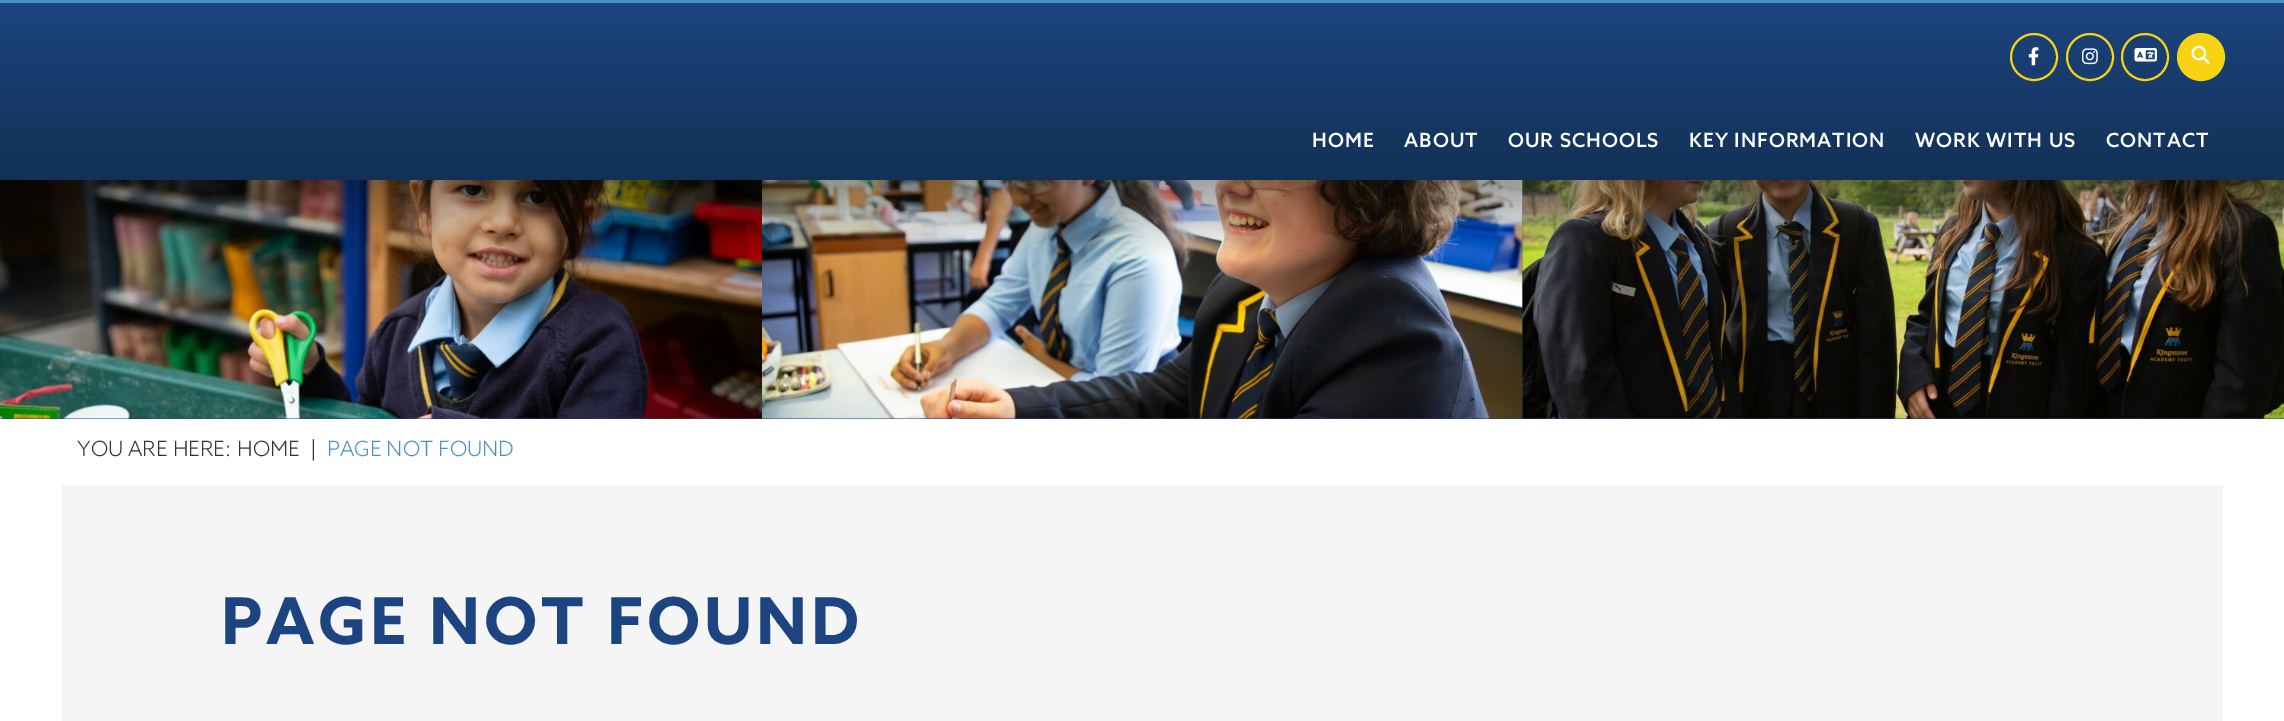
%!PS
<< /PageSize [2284 721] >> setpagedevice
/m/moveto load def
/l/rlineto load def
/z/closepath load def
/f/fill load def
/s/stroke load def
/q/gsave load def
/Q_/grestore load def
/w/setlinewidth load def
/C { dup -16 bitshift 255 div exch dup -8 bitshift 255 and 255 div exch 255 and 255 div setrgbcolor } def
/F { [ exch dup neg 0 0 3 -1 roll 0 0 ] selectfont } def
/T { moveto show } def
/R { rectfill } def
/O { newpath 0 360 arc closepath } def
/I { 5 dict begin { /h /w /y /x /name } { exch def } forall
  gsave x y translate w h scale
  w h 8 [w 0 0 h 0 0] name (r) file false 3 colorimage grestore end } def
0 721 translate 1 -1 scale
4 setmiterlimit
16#FFFFFF C
0 0 2284 721 R
16#4790C8 C
0 0 2284 3 R
q 0 3 m 2284 0 l 0 177 l -2284 0 l z clip newpath
<< /ShadingType 2 /ColorSpace /DeviceRGB /Coords [1142 180 1142 0] /Extend [true true] /Function << /FunctionType 2 /Domain [0 1] /C0 [.071 .192 .333] /C1 [.11 .267 .502] /N 1 >> >> shfill Q_
16#F7D313 C
2 w
2034 57 23 O s
(1.rgb) 2028 47 11 19 I
2090 57 23 O s
(2.rgb) 2082 48 16 17 I
2145 57 23 O s
(3.rgb) 2134 48 23 14 I
2201 57 23 O q f Q_
s
(4.rgb) 2191 45 19 19 I
/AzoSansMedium-Medium 19.5 F
16#FFFFFF C
1312 147 m 1 0 (HOME) ashow
1404 147 m 1 0 (ABOUT) ashow
1508 147 m 1 0 (OUR SCHOOLS) ashow
1689 147 m 1 0 (KEY INFORMATION) ashow
1915 147 m 1 0 (WORK WITH US) ashow
2106 147 m 1 0 (CONTACT) ashow
16#1C4480 C
0 180 2284 239 R
(5.rgb) 0 180 762 239 I
(6.rgb) 762 180 761 239 I
(7.rgb) 1522 180 762 239 I
16#F6F5F6 C
62 485 2161 236 R
/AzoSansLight-Light 21 F
16#333333 C
(YOU ARE HERE:) 77 456 T
(HOME) 237 456 T
(|) 310 456 T
16#4790C8 C
(PAGE NOT FOUND) 327 456 T
/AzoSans-Bold 64.6 F
16#1C4480 C
221 644 m 3.9 0 (PAGE NOT FOUND) ashow
showpage
